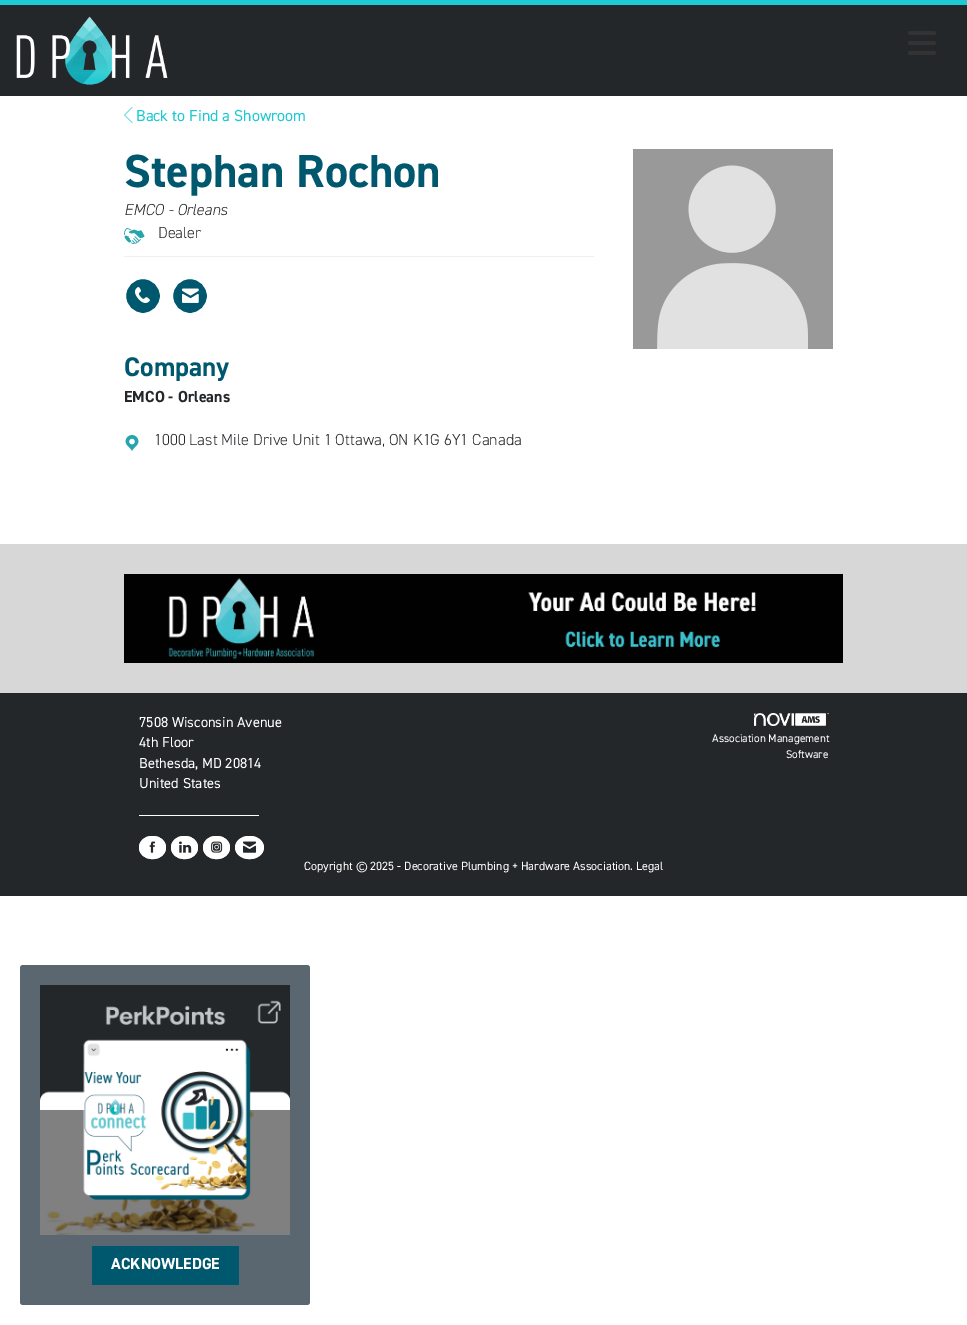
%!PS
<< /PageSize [967 1325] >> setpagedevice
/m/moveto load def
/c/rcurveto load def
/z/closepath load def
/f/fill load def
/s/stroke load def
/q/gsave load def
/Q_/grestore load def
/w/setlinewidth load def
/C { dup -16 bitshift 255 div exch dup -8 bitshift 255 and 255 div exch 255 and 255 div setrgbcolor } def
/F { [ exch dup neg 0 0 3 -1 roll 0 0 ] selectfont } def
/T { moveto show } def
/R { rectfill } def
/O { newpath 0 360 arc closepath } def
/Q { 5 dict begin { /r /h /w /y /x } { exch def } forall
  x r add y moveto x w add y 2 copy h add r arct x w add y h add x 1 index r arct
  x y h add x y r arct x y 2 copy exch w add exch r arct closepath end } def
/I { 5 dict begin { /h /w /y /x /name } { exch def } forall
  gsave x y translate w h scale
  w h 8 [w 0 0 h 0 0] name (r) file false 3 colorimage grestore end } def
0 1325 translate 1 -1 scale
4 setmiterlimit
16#FFFFFF C
0 0 967 1325 R
16#24272A C
0 5 967 91 R
16#1DCAD3 C
0 0 967 5 R
(1.rgb) 16 16 152 69 I
(2.rgb) 908 31 28 24 I
(3.rgb) 124 107 9 16 I
/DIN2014-Regular 16 F
(Back to Find a Showroom) 136 121 T
16#F0F0F0 C
124 256 470 1 R
/DIN2014-Bold 46.5 F
16#00586F C
(Stephan Rochon) 124 187 T
/DIN2014-LightItalic 16 F
16#24272A C
(EMCO - Orleans) 124 215 T
(4.rgb) 124 228 21 16 I
/DIN2014-Light 16 F
(Dealer) 158 238 T
16#00586F C
143 296 18 O q f Q_
16#FFFFFF C
2 w
s
(5.rgb) 135 287 15 16 I
16#00586F C
190 296 18 O q f Q_
16#FFFFFF C
s
(6.rgb) 182 288 17 15 I
/DIN2014-Bold 27 F
16#00586F C
(Company) 124 376 T
/DIN2014-Bold 16 F
16#24272A C
(EMCO - Orleans) 124 402 T
(7.rgb) 125 435 14 16 I
/DIN2014-Light 16 F
(1000 Last Mile Drive Unit 1 Ottawa, ON K1G 6Y1 Canada) 154 445 T
(8.rgb) 633 149 200 200 I
16#D7D7D7 C
0 544 967 149 R
(9.rgb) 124 574 719 89 I
16#24272A C
0 693 967 203 R
/DIN2014-Regular 14.5 F
16#FFFFFF C
(7508 Wisconsin Avenue) 139 727 T
(4th Floor) 139 747 T
(Bethesda, MD 20814) 139 768 T
(United States) 139 788 T
139 815 120 1 R
152.5 836 m 7.5 0 13.5 5 13.5 11.5 c 0 6.5 -6 11.5 -13.5 11.5 c -7.5 0 -13.5 -5 -13.5 -11.5 c 0 -6.5 6 -11.5 13.5 -11.5 c z f
152.5 837 m 16.5 0 16.5 21 0 21 c -16.5 0 -16.5 -21 0 -21 c z s
(10.rgb) 149 841 7 12 I
184.5 836 m 7.5 0 13.5 5 13.5 11.5 c 0 6.5 -6 11.5 -13.5 11.5 c -7.5 0 -13.5 -5 -13.5 -11.5 c 0 -6.5 6 -11.5 13.5 -11.5 c z f
184.5 837 m 16.5 0 16.5 21 0 21 c -16.5 0 -16.5 -21 0 -21 c z s
(11.rgb) 179 841 13 12 I
216.5 836 m 7.5 0 13.5 5 13.5 11.5 c 0 6.5 -6 11.5 -13.5 11.5 c -7.5 0 -13.5 -5 -13.5 -11.5 c 0 -6.5 6 -11.5 13.5 -11.5 c z f
216.5 837 m 16.5 0 16.5 21 0 21 c -16.5 0 -16.5 -21 0 -21 c z s
(12.rgb) 211 841 12 12 I
249.5 836 m 8 0 14.5 5 14.5 11.5 c 0 6.5 -6.5 11.5 -14.5 11.5 c -8 0 -14.5 -5 -14.5 -11.5 c 0 -6.5 6.5 -11.5 14.5 -11.5 c z f
249.5 837 m 17.5 0 17.5 21 0 21 c -17.5 0 -17.5 -21 0 -21 c z s
(13.rgb) 243 841 14 12 I
(14.rgb) 754 713 75 13 I
/DIN2014-Regular 11.25 F
(Association Management) 712 742 T
(Software) 786 758 T
/DIN2014-Regular 12 F
(Copyright © 2025 - Decorative Plumbing + Hardware Association. Legal) 304 870 T
16#5B6770 C
20 965 290 340 3 Q f
(15.rgb) 40 985 250 250 I
16#00586F C
92 1246 147 39 R
/DIN2014-Bold 16 F
16#FFFFFF C
(ACKNOWLEDGE) 111 1269 T
showpage
